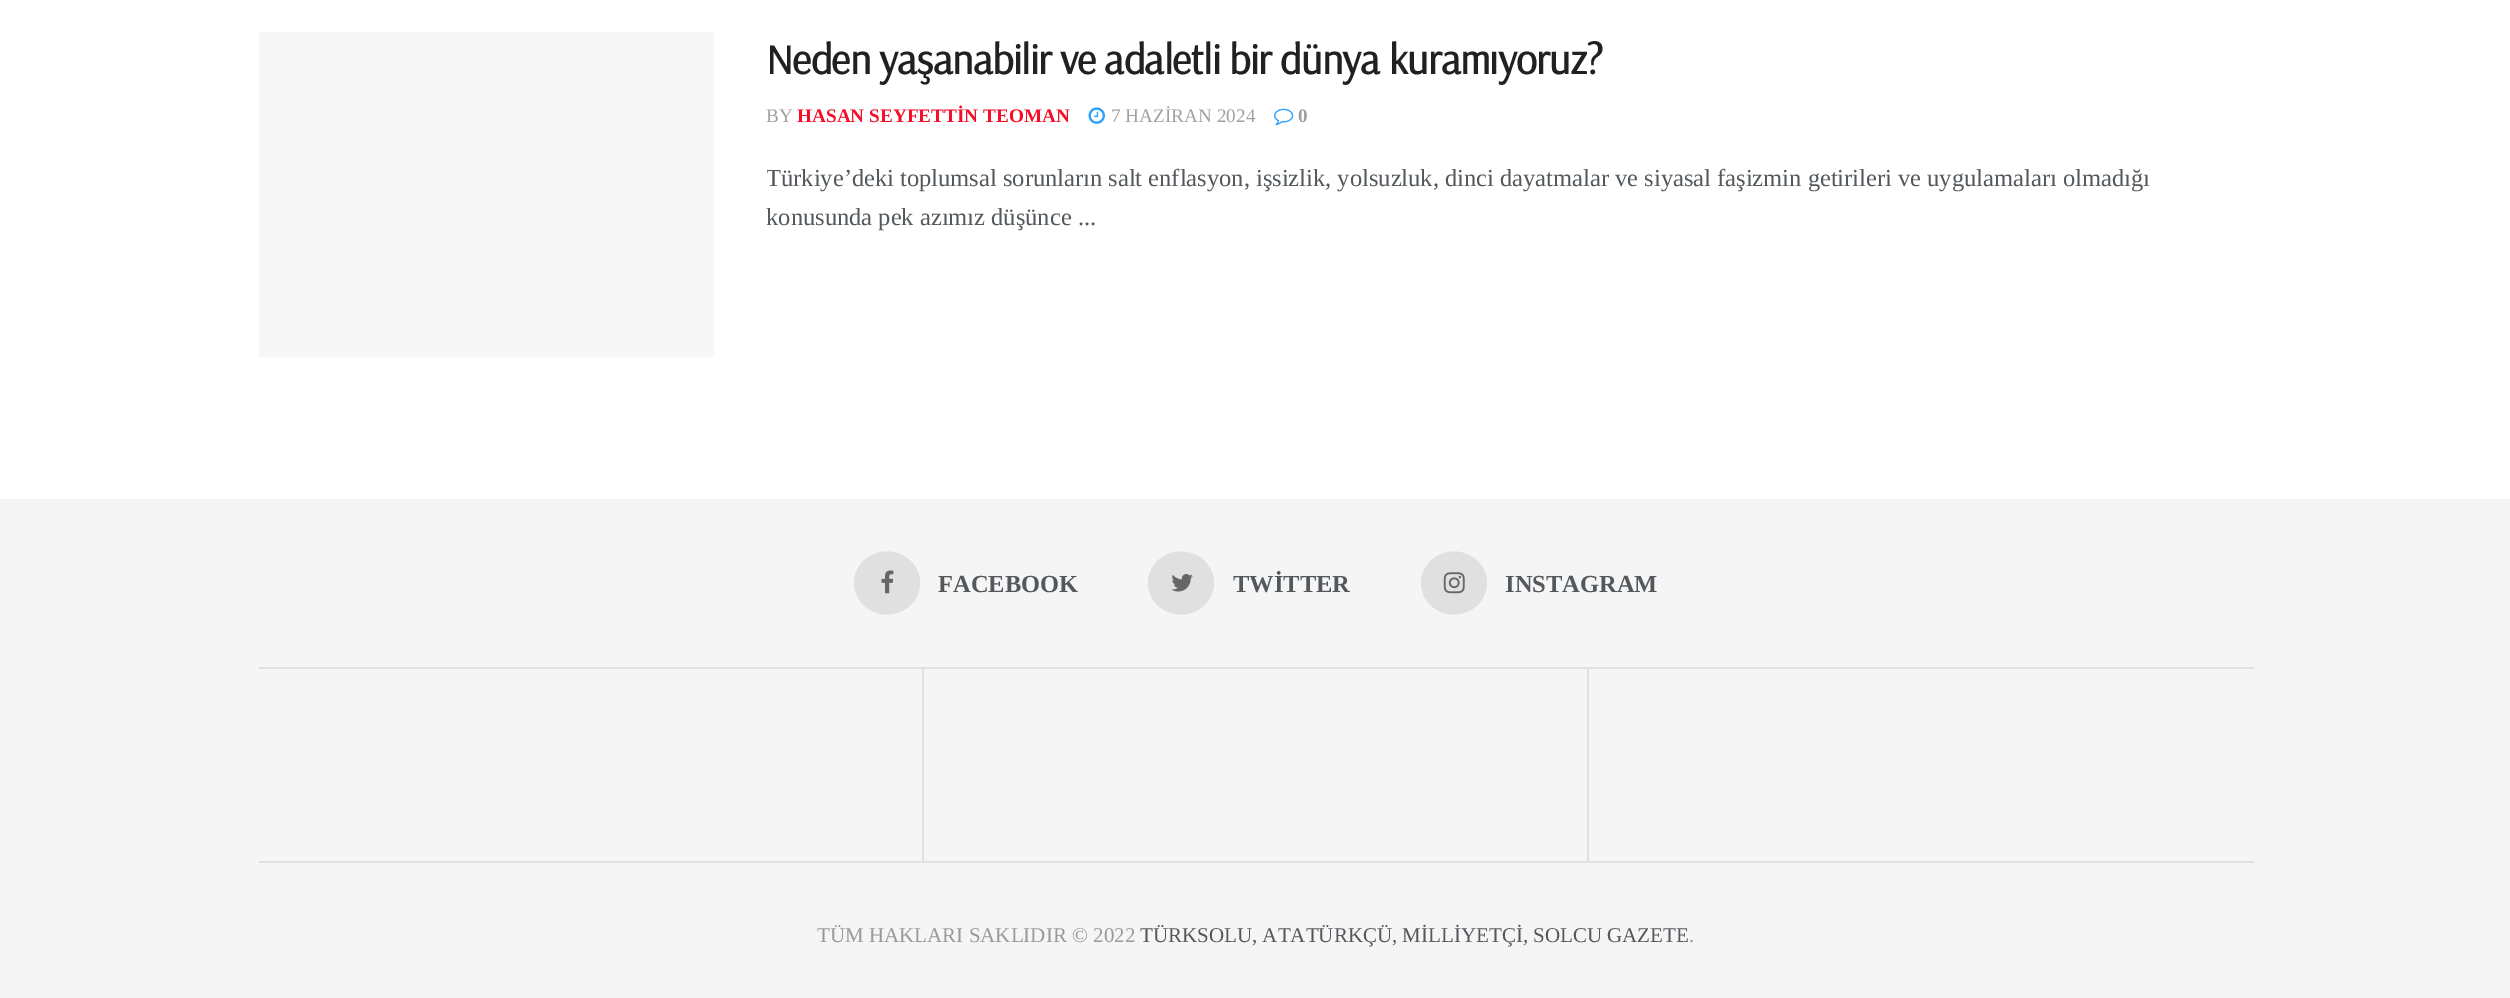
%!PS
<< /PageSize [2510 998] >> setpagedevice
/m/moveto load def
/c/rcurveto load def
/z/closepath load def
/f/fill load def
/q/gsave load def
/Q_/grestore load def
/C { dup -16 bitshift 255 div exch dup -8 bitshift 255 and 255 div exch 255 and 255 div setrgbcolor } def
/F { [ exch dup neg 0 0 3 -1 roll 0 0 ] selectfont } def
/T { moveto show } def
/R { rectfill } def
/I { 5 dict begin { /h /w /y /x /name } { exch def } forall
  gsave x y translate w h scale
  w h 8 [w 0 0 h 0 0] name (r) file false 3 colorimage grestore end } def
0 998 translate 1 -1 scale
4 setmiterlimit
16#FFFFFF C
0 0 2510 998 R
16#F7F7F7 C
259 32 455 325 R
/Arsenal-Bold 42 F
16#212121 C
766 74 m -.85 0 (Neden yaşanabilir ve adaletli bir dünya kuramıyoruz?) ashow
/LiberationSerif-Regular 19.25 F
16#A0A0A0 C
(BY) 766 122 T
/LiberationSerif-Bold 19.25 F
16#F70D28 C
(HASAN SEYFETTİN TEOMAN) 797 122 T
(1.rgb) 1088 107 17 17 I
/LiberationSerif-Regular 19.25 F
16#A0A0A0 C
(7 HAZİRAN 2024) 1111 122 T
(2.rgb) 1274 108 20 18 I
/LiberationSerif-Bold 19.25 F
(0) 1298 122 T
q
767 32 1487 206 rectclip
/LiberationSerif-Regular 24.5 F
16#53585C C
(Türkiye’deki toplumsal sorunların salt enflasyon, işsizlik, yolsuzluk, dinci dayatmalar ve siyasal faşizmin getirileri ve uygulamaları olmadığı) 766 186 T
Q_
/LiberationSerif-Regular 24.5 F
16#53585C C
(konusunda pek azımız düşünce ...) 766 225 T
16#F5F5F5 C
0 499 2510 499 R
16#E0E0E0 C
259 667 1995 2 R
887 551.5 m 18 0 33 14 33 31.5 c 0 17.5 -15 31.5 -33 31.5 c -18 0 -33 -14 -33 -31.5 c 0 -17.5 15 -31.5 33 -31.5 c z f
(3.rgb) 881 570 13 24 I
/LiberationSerif-Bold 24.5 F
16#53585C C
(FACEBOOK) 938 592 T
16#E0E0E0 C
1181 551.5 m 18 0 33 14 33 31.5 c 0 17.5 -15 31.5 -33 31.5 c -18 0 -33 -14 -33 -31.5 c 0 -17.5 15 -31.5 33 -31.5 c z f
(4.rgb) 1171 574 22 18 I
16#53585C C
(TWİTTER) 1233 592 T
16#E0E0E0 C
1454 551.5 m 18 0 33 14 33 31.5 c 0 17.5 -15 31.5 -33 31.5 c -18 0 -33 -14 -33 -31.5 c 0 -17.5 15 -31.5 33 -31.5 c z f
(5.rgb) 1443 572 22 22 I
16#53585C C
(INSTAGRAM) 1505 592 T
16#E0E0E0 C
922 669 2 192 R
1587 669 2 192 R
259 861 1995 2 R
/LiberationSerif-Regular 21 F
16#999999 C
(TÜM HAKLARI SAKLIDIR © 2022) 817 942 T
16#53585C C
(TÜRKSOLU, ATATÜRKÇÜ, MİLLİYETÇİ, SOLCU GAZETE) 1140 942 T
16#999999 C
(.) 1689 942 T
showpage
